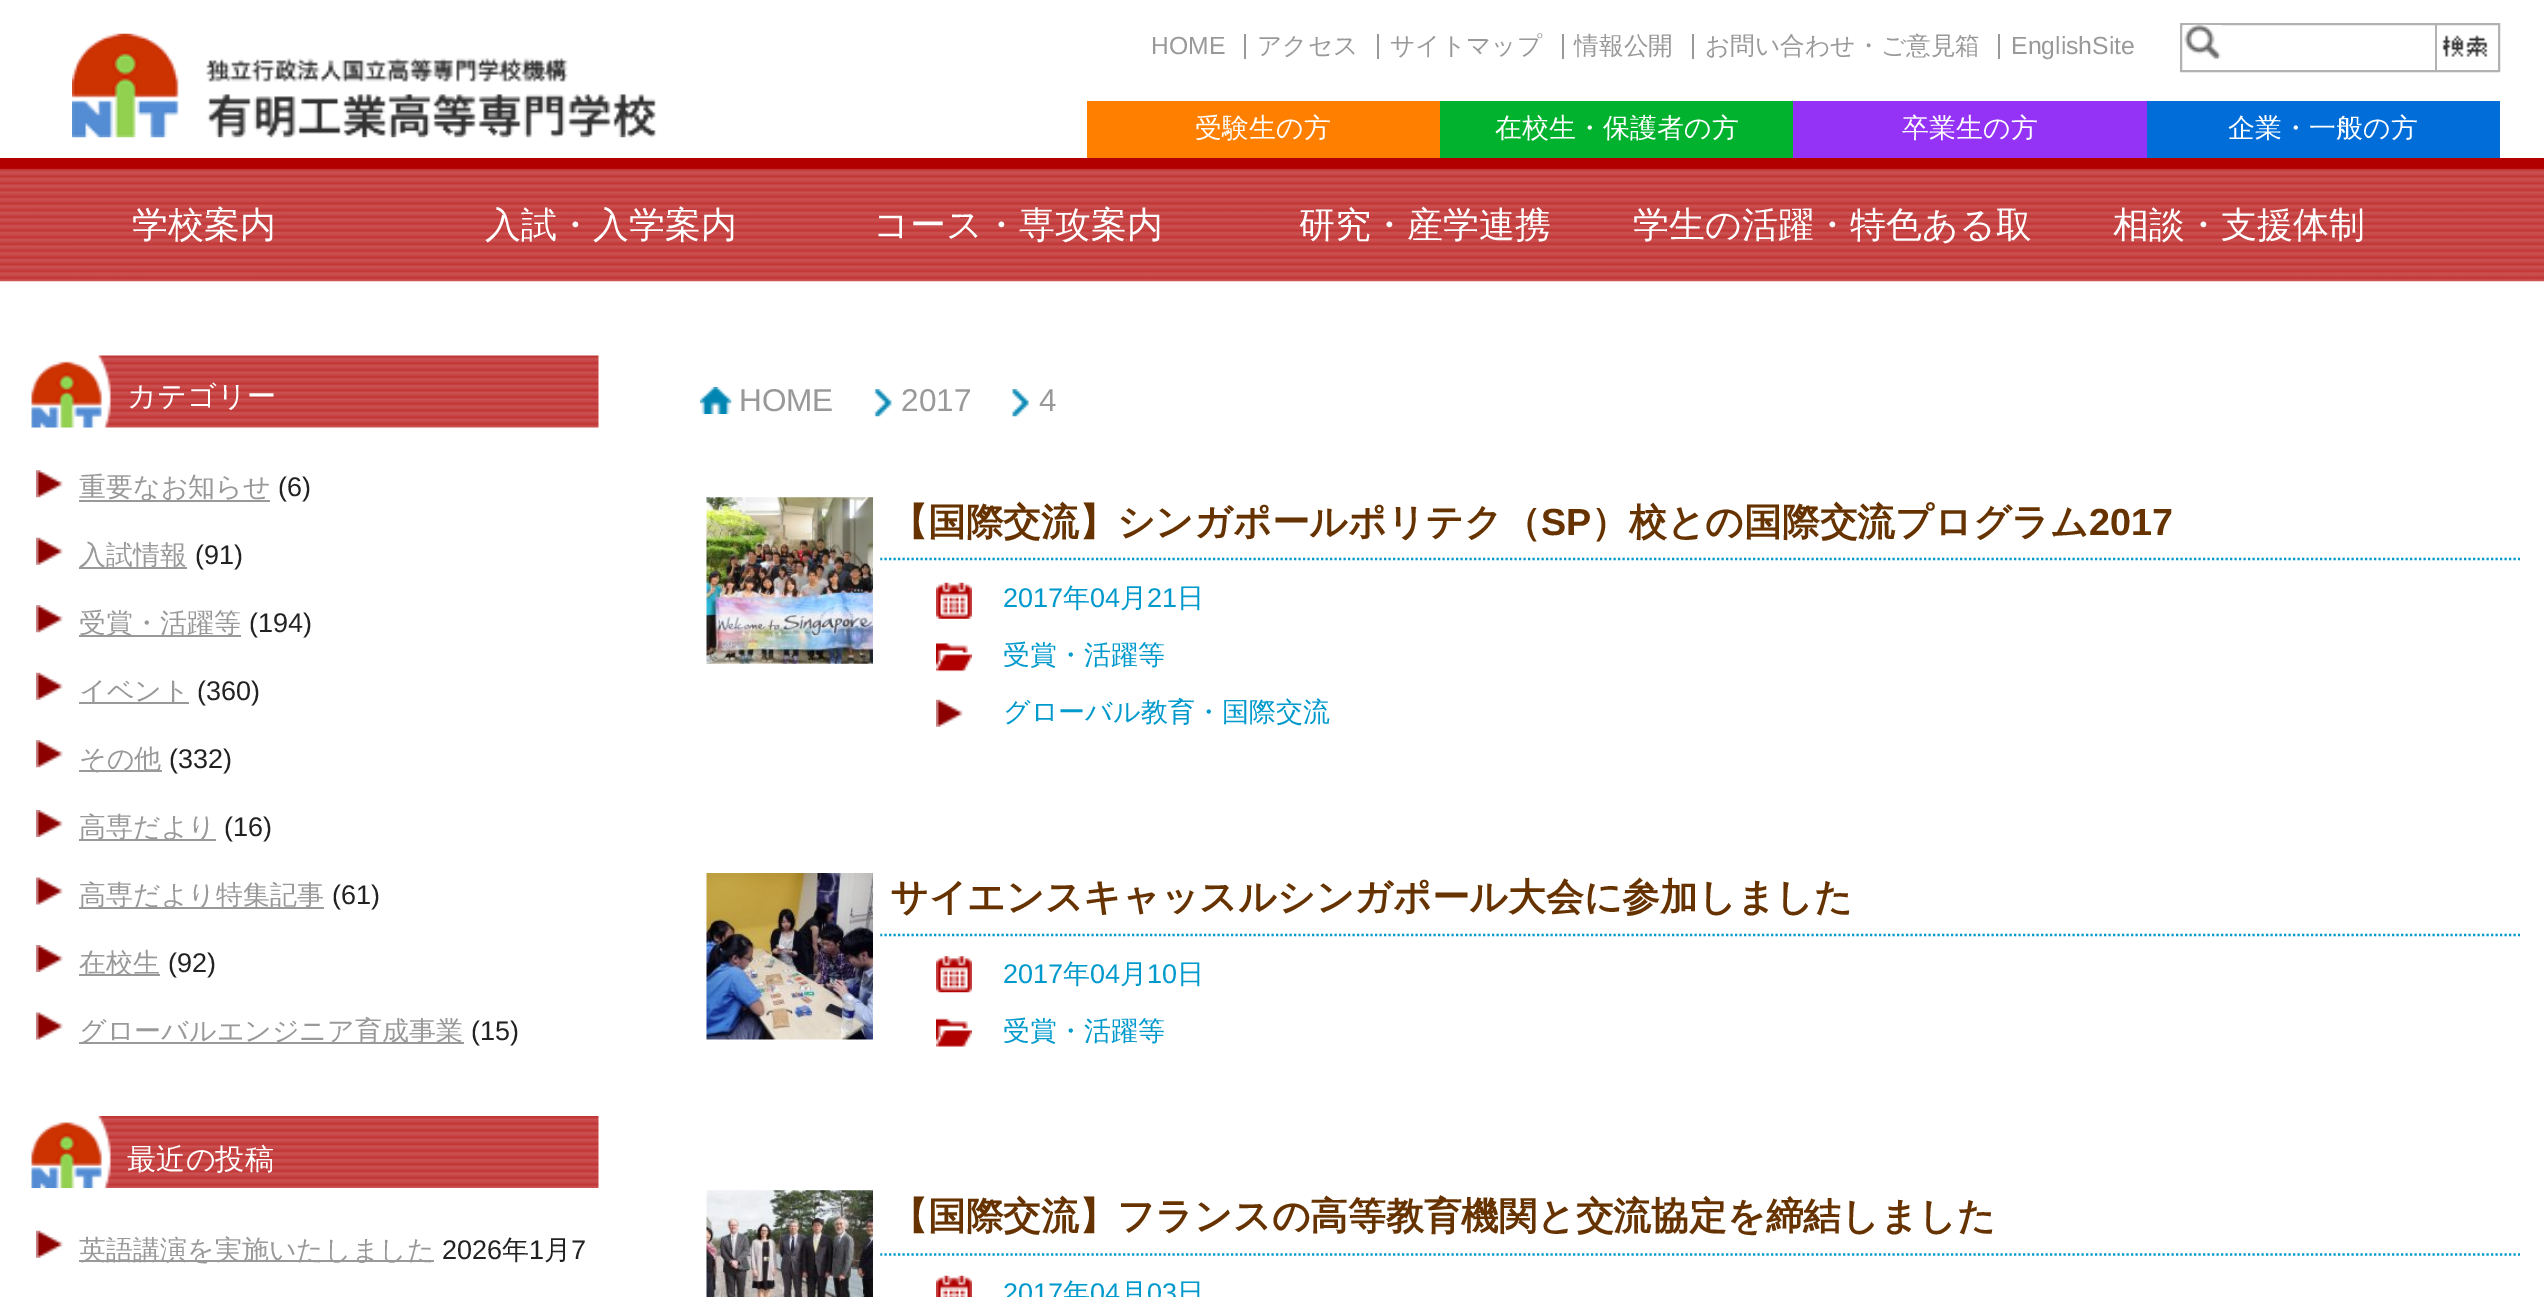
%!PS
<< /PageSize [2544 1297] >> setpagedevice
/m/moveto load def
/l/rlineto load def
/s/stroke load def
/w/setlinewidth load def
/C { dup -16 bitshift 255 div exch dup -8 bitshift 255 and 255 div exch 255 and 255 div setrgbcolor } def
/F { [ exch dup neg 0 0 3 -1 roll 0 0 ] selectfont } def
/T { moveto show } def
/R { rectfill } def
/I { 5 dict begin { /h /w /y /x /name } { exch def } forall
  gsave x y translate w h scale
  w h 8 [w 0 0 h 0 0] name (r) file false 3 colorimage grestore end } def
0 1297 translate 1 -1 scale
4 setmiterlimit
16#FFFFFF C
0 0 2544 1297 R
16#B20000 C
0 158 2544 11 R
(1.rgb) 72 33 585 105 I
/LiberationSans-Regular 24.75 F
16#999999 C
(HOME) 1151 54 T
1244 34 2 25 R
/WenQuanYiZenHei-Medium 24.75 F
(アクセス) 1257 54 T
1377 34 2 25 R
(サイトマップ) 1390 54 T
1562 34 2 25 R
(情報公開) 1574 54 T
1692 34 2 25 R
(お問い合わせ・ご意見箱) 1705 54 T
1998 34 2 25 R
/LiberationSans-Regular 24.75 F
(EnglishSite) 2011 54 T
16#B2B2B2 C
2 w
2181 24 318 47 rectstroke
(2.rgb) 2184 24 38 36 I
2435 25 2 45 R
(3.rgb) 2442 35 46 22 I
16#FF8000 C
1087 101 353 57 R
/WenQuanYiZenHei-Medium 27 F
16#FFFFFF C
(受験生の方) 1195 137 T
16#00B22D C
1440 101 353 57 R
16#FFFFFF C
(在校生・保護者の方) 1495 137 T
16#9432F5 C
1793 101 354 57 R
16#FFFFFF C
(卒業生の方) 1902 137 T
16#006DD9 C
2147 101 353 57 R
16#FFFFFF C
(企業・一般の方) 2228 137 T
(4.rgb) 0 168 2544 114 I
/WenQuanYiZenHei-Medium 36 F
(学校案内) 132 237 T
(入試・入学案内) 485 237 T
(コース・専攻案内) 873 237 T
(研究・産学連携) 1299 237 T
(学生の活躍・特色ある取) 1633 237 T
(相談・支援体制) 2113 237 T
(5.rgb) 31 355 568 73 I
/WenQuanYiZenHei-Medium 29.25 F
(カテゴリー) 127 406 T
(6.rgb) 36 470 27 28 I
16#999999 C
79 500 191 2 R
/WenQuanYiZenHei-Medium 27 F
(重要なお知らせ) 79 496 T
/LiberationSans-Regular 27 F
16#222222 C
(\(6\)) 278 496 T
(7.rgb) 36 537 27 28 I
16#999999 C
79 567 108 2 R
/WenQuanYiZenHei-Medium 27 F
(入試情報) 79 564 T
/LiberationSans-Regular 27 F
16#222222 C
(\(91\)) 195 564 T
(6.rgb) 36 605 27 28 I
16#999999 C
79 635 162 2 R
/WenQuanYiZenHei-Medium 27 F
(受賞・活躍等) 79 632 T
/LiberationSans-Regular 27 F
16#222222 C
(\(194\)) 249 632 T
(7.rgb) 36 672 27 28 I
16#999999 C
79 702 110 2 R
/WenQuanYiZenHei-Medium 27 F
(イベント) 79 700 T
/LiberationSans-Regular 27 F
16#222222 C
(\(360\)) 197 700 T
(6.rgb) 36 740 27 28 I
16#999999 C
79 770 83 2 R
/WenQuanYiZenHei-Medium 27 F
(その他) 79 768 T
/LiberationSans-Regular 27 F
16#222222 C
(\(332\)) 169 768 T
(8.rgb) 36 810 27 27 I
16#999999 C
79 839 137 2 R
/WenQuanYiZenHei-Medium 27 F
(高専だより) 79 836 T
/LiberationSans-Regular 27 F
16#222222 C
(\(16\)) 224 836 T
(9.rgb) 36 877 27 28 I
16#999999 C
79 907 245 2 R
/WenQuanYiZenHei-Medium 27 F
(高専だより特集記事) 79 904 T
/LiberationSans-Regular 27 F
16#222222 C
(\(61\)) 332 904 T
(8.rgb) 36 945 27 27 I
16#999999 C
79 974 81 2 R
/WenQuanYiZenHei-Medium 27 F
(在校生) 79 972 T
/LiberationSans-Regular 27 F
16#222222 C
(\(92\)) 168 972 T
(9.rgb) 36 1012 27 28 I
16#999999 C
79 1042 385 2 R
/WenQuanYiZenHei-Medium 27 F
(グローバルエンジニア育成事業) 79 1040 T
/LiberationSans-Regular 27 F
16#222222 C
(\(15\)) 471 1040 T
(10.rgb) 31 1116 568 72 I
/WenQuanYiZenHei-Medium 29.25 F
16#FFFFFF C
(最近の投稿) 127 1169 T
(7.rgb) 36 1230 27 28 I
16#999999 C
79 1260 355 2 R
/WenQuanYiZenHei-Medium 27 F
(英語講演を実施いたしました) 79 1259 T
/LiberationSans-Regular 27 F
16#222222 C
(2026) 442 1259 T
/WenQuanYiZenHei-Medium 27 F
(年) 502 1259 T
/LiberationSans-Regular 27 F
(1) 529 1259 T
/WenQuanYiZenHei-Medium 27 F
(月) 544 1259 T
/LiberationSans-Regular 27 F
(7) 571 1259 T
(11.rgb) 699 387 33 27 I
/LiberationSans-Regular 31.5 F
16#999999 C
(HOME) 739 411 T
(12.rgb) 874 389 18 28 I
(2017) 901 411 T
(13.rgb) 1012 389 17 28 I
(4) 1039 411 T
16#0099CC C
2.2 w
[2.25 2.25] 0 setdash
700 559 m 1820 0 l s
16#FFFFFF C
7 w
[] 0 setdash
703.5 494.5 173 173 rectstroke
(14.rgb) 706 497 167 167 I
/WenQuanYiZenHei-Bold 37.8 F
16#663300 C
(【国際交流】シンガポールポリテク（) 890 535 T
/LiberationSans-Bold 37.8 F
(SP) 1541 535 T
/WenQuanYiZenHei-Bold 37.8 F
(）校との国際交流プログラム) 1591 535 T
/LiberationSans-Bold 37.8 F
(2017) 2089 535 T
(15.rgb) 936 582 36 37 I
/LiberationSans-Regular 27 F
16#0099CC C
(2017) 1003 607 T
/WenQuanYiZenHei-Medium 27 F
(年) 1063 607 T
/LiberationSans-Regular 27 F
(04) 1090 607 T
/WenQuanYiZenHei-Medium 27 F
(月) 1120 607 T
/LiberationSans-Regular 27 F
(21) 1147 607 T
/WenQuanYiZenHei-Medium 27 F
(日) 1177 607 T
(16.rgb) 936 643 36 29 I
(受賞・活躍等) 1003 664 T
(17.rgb) 936 699 27 28 I
(グローバル教育・国際交流) 1003 721 T
2.2 w
[2.25 2.25] 0 setdash
700 935 m 1820 0 l s
16#FFFFFF C
7 w
[] 0 setdash
703.5 869.5 173 173 rectstroke
(18.rgb) 706 873 167 167 I
/WenQuanYiZenHei-Bold 37.8 F
16#663300 C
(サイエンスキャッスルシンガポール大会に参加しました) 890 910 T
(19.rgb) 936 956 36 37 I
/LiberationSans-Regular 27 F
16#0099CC C
(2017) 1003 983 T
/WenQuanYiZenHei-Medium 27 F
(年) 1063 983 T
/LiberationSans-Regular 27 F
(04) 1090 983 T
/WenQuanYiZenHei-Medium 27 F
(月) 1120 983 T
/LiberationSans-Regular 27 F
(10) 1147 983 T
/WenQuanYiZenHei-Medium 27 F
(日) 1177 983 T
(20.rgb) 936 1018 36 29 I
(受賞・活躍等) 1003 1040 T
2.2 w
[2.25 2.25] 0 setdash
700 1254.5 m 1820 0 l s
16#FFFFFF C
7 w
[] 0 setdash
703.5 1187.5 173 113 rectstroke
(21.rgb) 706 1190 167 107 I
/WenQuanYiZenHei-Bold 37.8 F
16#663300 C
(【国際交流】フランスの高等教育機関と交流協定を締結しました) 890 1229 T
(22.rgb) 936 1275 36 22 I
/LiberationSans-Regular 27 F
16#0099CC C
(2017) 1003 1302 T
/WenQuanYiZenHei-Medium 27 F
(年) 1063 1302 T
/LiberationSans-Regular 27 F
(04) 1090 1302 T
/WenQuanYiZenHei-Medium 27 F
(月) 1120 1302 T
/LiberationSans-Regular 27 F
(03) 1147 1302 T
/WenQuanYiZenHei-Medium 27 F
(日) 1177 1302 T
showpage
